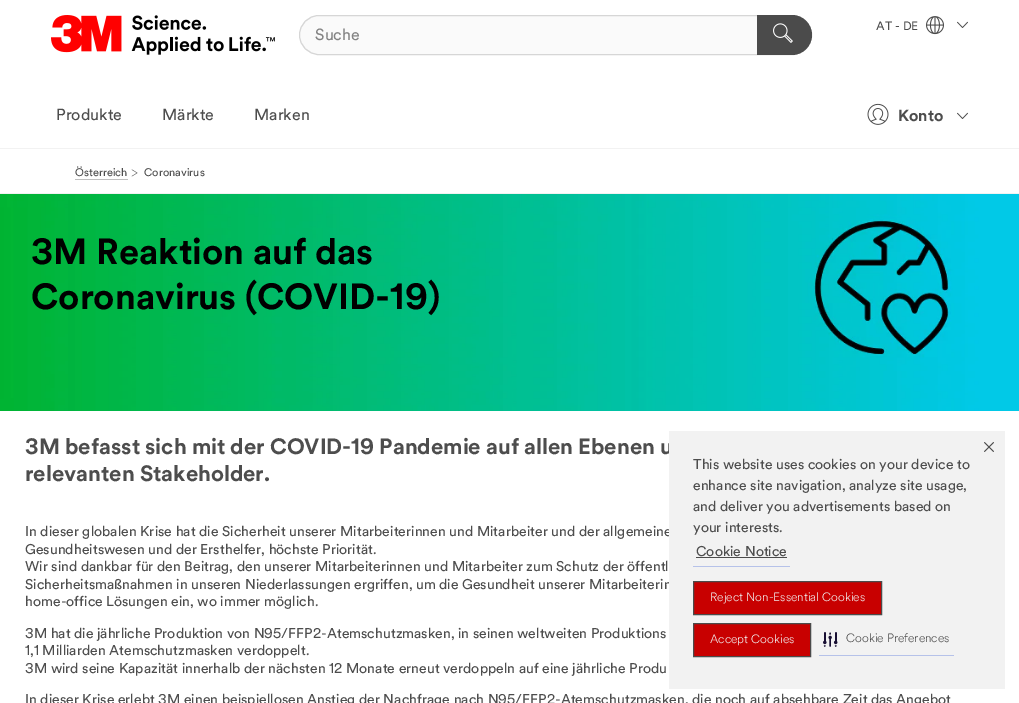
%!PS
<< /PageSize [1019 703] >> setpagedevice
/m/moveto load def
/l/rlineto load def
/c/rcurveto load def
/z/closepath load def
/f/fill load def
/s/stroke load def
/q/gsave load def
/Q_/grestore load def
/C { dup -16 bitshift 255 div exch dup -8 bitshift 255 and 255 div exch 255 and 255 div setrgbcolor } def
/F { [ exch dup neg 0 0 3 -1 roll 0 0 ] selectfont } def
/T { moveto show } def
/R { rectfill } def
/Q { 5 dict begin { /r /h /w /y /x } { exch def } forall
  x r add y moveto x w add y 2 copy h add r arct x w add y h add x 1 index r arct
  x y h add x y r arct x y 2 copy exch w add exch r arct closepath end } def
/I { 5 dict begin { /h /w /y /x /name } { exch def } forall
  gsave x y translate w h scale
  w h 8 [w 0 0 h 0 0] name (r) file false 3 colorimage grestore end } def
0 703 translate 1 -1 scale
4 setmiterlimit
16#FFFFFF C
0 0 1019 703 R
16#F2F2F2 C
0 148 1019 1 R
/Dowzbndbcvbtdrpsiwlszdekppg-Regular 12 F
16#4D4D4D C
(AT - DE) 876 30 T
(1.rgb) 926 16 18 19 I
(2.rgb) 957 21 11 7 I
/Dowzbndbcvbtdrpsiwlszdekppg-Regular 16 F
(Produkte) 56 120 T
(Märkte) 162 120 T
(Marken) 254 120 T
(3.rgb) 867 103 22 22 I
/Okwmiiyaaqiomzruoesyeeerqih-Bold 16 F
(Konto) 898 121 T
(2.rgb) 957 112 11 7 I
(4.rgb) 51 15 224 40 I
16#FAFAFA C
299.5 15.5 512 39 19.5 Q q f Q_
16#D6D6D6 C
s
/Dowzbndbcvbtdrpsiwlszdekppg-Regular 16 F
16#838383 C
(Suche) 315 40 T
16#4B4B4B C
757 15 m 35 0 l 11 0 20 9 20 20 c 0 11 -9 20 -20 20 c -35 0 l z f
(5.rgb) 773 23 20 20 I
16#F2F2F2 C
0 193 1019 1 R
/Dowzbndbcvbtdrpsiwlszdekppg-Regular 11 F
16#4D4D4D C
(Österreich) 75 176 T
16#BFBFBF C
75 179 53 1 R
(6.rgb) 131 169 7 8 I
16#4D4D4D C
(Coronavirus) 144 176 T
(7.rgb) 0 194 1019 217 I
/Okwmiiyaaqiomzruoesyeeerqih-Bold 36 F
16#000000 C
(3M Reaktion auf das) 31 264 T
(Coronavirus \(COVID-19\)) 31 309 T
/Okwmiiyaaqiomzruoesyeeerqih-Bold 22 F
16#4D4D4D C
(3M befasst sich mit der COVID-19 Pandemie auf allen Ebenen u) 25 454 T
(relevanten Stakeholder.) 25 481 T
/Dowzbndbcvbtdrpsiwlszdekppg-Regular 14 F
(In dieser globalen Krise hat die Sicherheit unserer Mitarbeiterinnen und Mitarbeiter und der allgemeine) 25 536 T
(Gesundheitswesen und der Ersthelfer, höchste Priorität.) 25 554 T
(Wir sind dankbar für den Beitrag, den unserer Mitarbeiterinnen und Mitarbeiter zum Schutz der öffentl) 25 571 T
(Sicherheitsmaßnahmen in unseren Niederlassungen ergriffen, um die Gesundheit unserer Mitarbeiterin) 25 589 T
(home-office Lösungen ein, wo immer möglich.) 25 606 T
(3M hat die jährliche Produktion von N95/FFP2-Atemschutzmasken, in seinen weltweiten Produktions) 25 638 T
(1,1 Milliarden Atemschutzmasken verdoppelt.) 25 655 T
(3M wird seine Kapazität innerhalb der nächsten 12 Monate erneut verdoppeln auf eine jährliche Produ) 25 673 T
(In dieser Krise erlebt 3M einen beispiellosen Anstieg der Nachfrage nach N95/FFP2-Atemschutzmasken, die noch auf absehbare Zeit das Angebot) 25 704 T
16#F2F2F2 C
669 431 336 258 R
16#4D4D4D C
(This website uses cookies on your device to) 693 469 T
(enhance site navigation, analyze site usage,) 693 490 T
(and deliver you advertisements based on) 693 511 T
(your interests.) 693 532 T
16#B6C2E9 C
693 566 97 1 R
16#4D4D4D C
(Cookie Notice) 696 556 T
16#4B4B4B C
696 557 91 1 R
(8.rgb) 984 442 10 10 I
16#C80000 C
693.5 581.5 m 188 0 l 0 33 l -188 0 l z q f Q_
16#4B4B4B C
s
/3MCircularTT-Light 12 F
16#F2F2F2 C
(Reject Non-Essential Cookies) 710 601 T
16#C80000 C
693.5 623.5 m 117 0 l 0 33 l -117 0 l z q f Q_
16#4B4B4B C
s
16#F2F2F2 C
(Accept Cookies) 710 643 T
16#B6C2E9 C
819 655 135 1 R
(9.rgb) 823 632 15 15 I
16#4D4D4D C
(Cookie Preferences) 846 642 T
showpage
